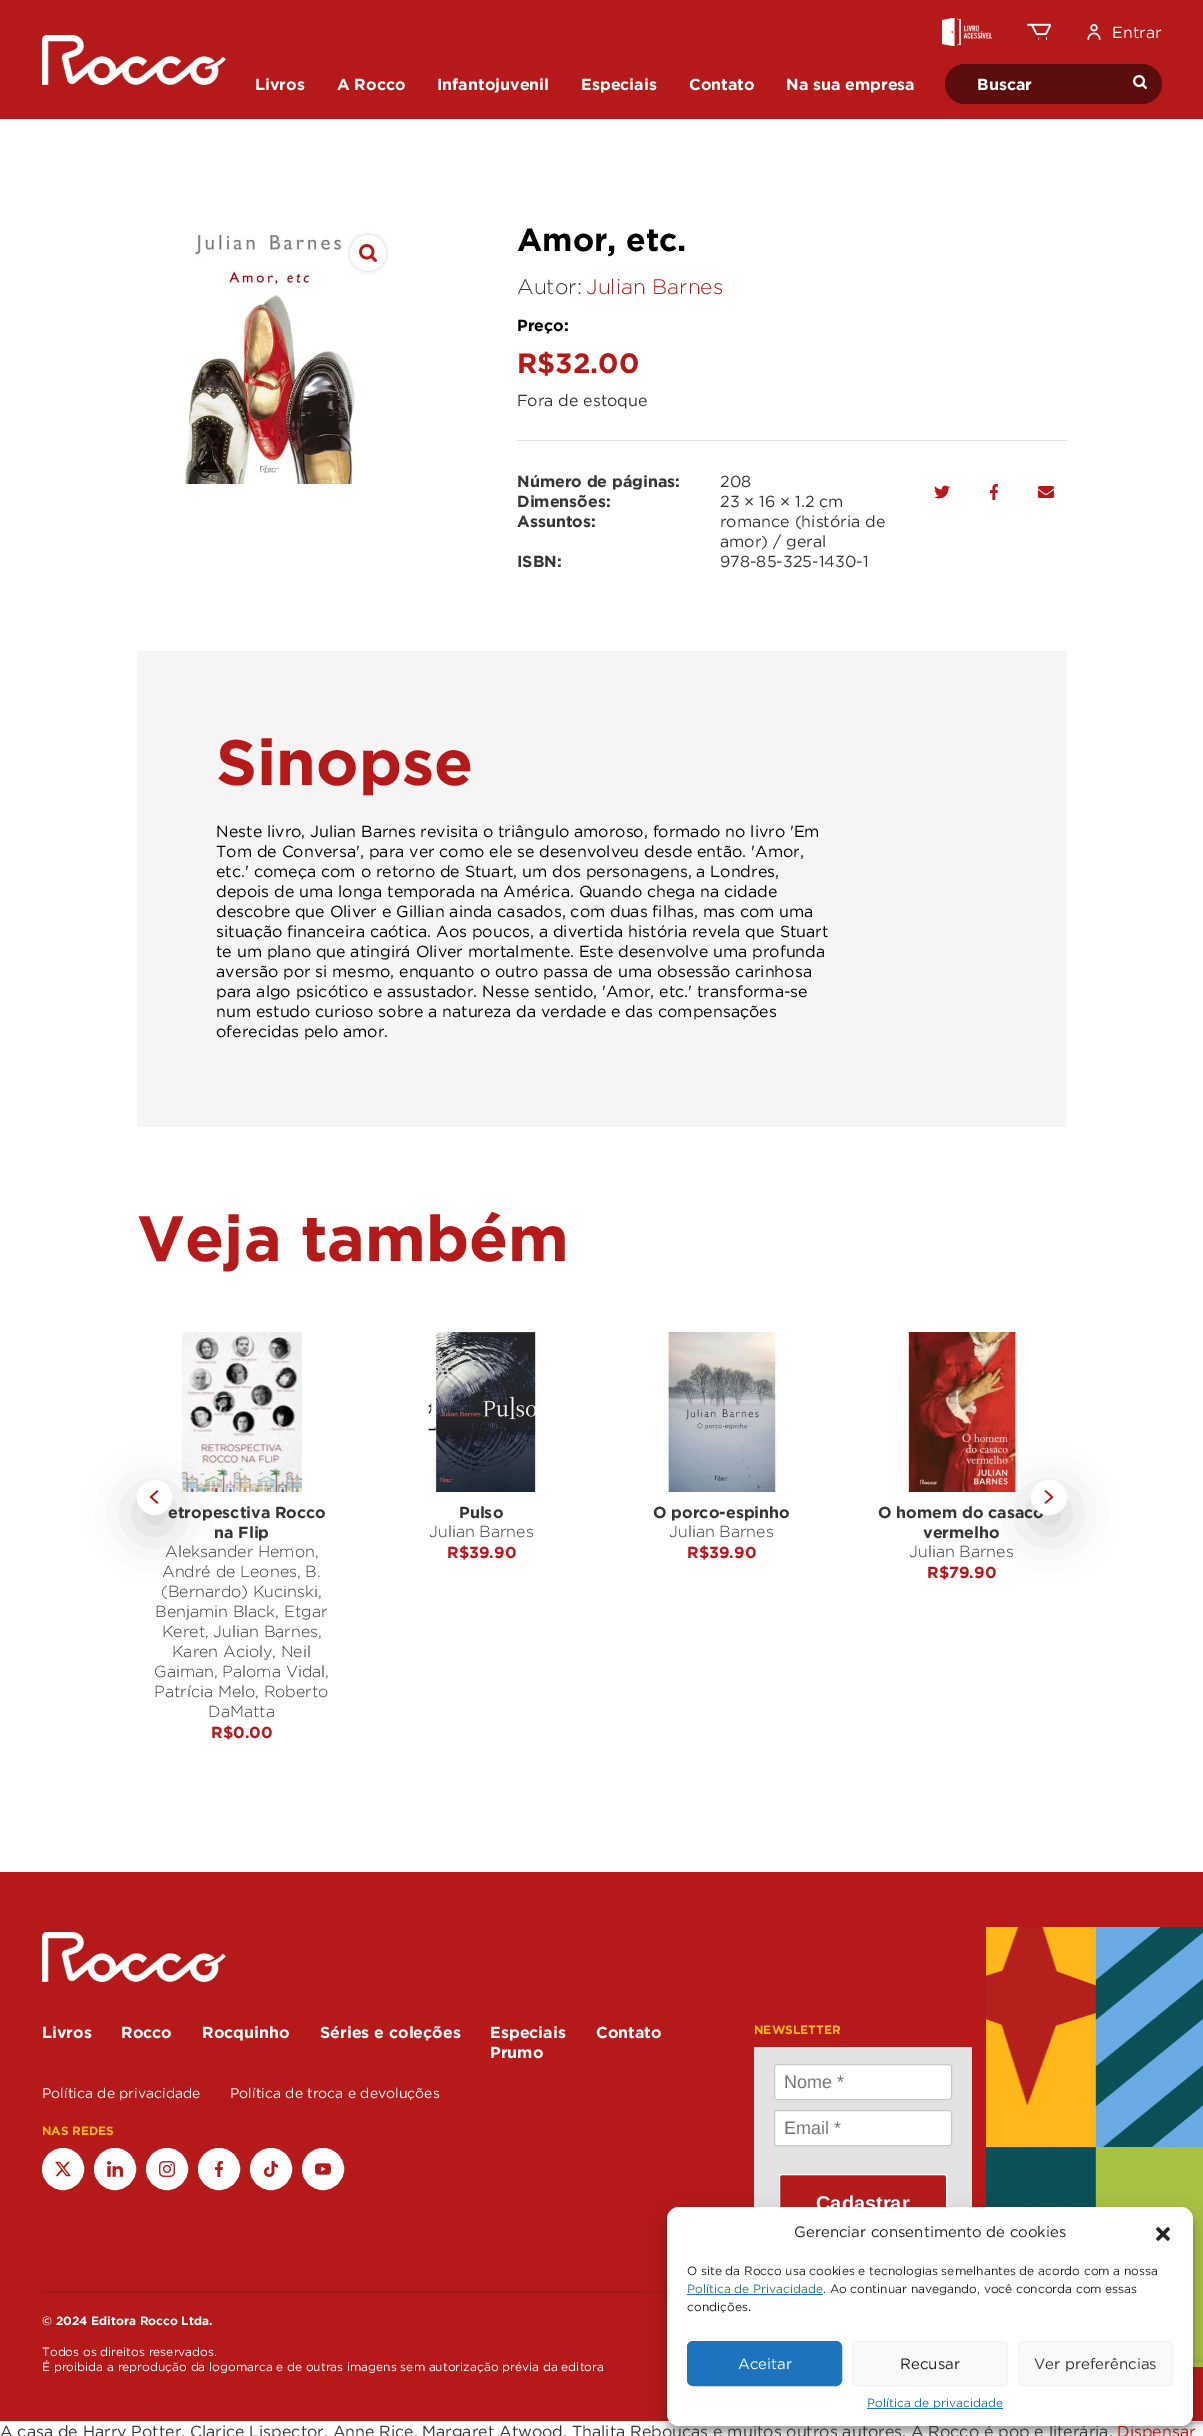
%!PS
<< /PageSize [1203 2436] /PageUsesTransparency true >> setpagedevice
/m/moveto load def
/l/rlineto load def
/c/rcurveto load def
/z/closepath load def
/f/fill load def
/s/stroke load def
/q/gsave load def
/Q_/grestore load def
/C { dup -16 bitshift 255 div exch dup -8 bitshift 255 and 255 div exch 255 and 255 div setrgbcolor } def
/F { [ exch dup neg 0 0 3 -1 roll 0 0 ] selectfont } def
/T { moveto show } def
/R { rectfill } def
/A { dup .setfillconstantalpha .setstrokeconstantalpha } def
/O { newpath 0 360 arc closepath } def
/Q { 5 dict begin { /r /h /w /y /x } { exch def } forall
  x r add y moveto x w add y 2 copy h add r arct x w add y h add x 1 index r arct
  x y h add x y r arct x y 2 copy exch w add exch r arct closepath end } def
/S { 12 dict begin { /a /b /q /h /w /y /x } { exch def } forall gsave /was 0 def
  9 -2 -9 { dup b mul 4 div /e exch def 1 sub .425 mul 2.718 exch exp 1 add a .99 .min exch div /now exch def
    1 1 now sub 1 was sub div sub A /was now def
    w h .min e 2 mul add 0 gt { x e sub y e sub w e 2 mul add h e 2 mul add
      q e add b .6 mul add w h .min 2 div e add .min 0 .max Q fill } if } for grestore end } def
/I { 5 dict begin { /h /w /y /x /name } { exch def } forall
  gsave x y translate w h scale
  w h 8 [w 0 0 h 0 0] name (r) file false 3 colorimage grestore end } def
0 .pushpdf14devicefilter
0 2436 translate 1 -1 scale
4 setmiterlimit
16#FFFFFF C
0 0 1203 2436 R
16#B5191A C
0 0 1203 119 R
(1.rgb) 942 18 50 28 I
(2.rgb) 1027 23 24 18 I
16#363636 C
1036.5 38.5 1.5 O f
1044.5 38.5 1.5 O f
(3.rgb) 1087 24 14 16 I
/Gotham-Regular 16 F
16#FFFFFF C
(Entrar) 1112 38 T
(4.rgb) 42 35 184 50 I
/Gotham-Bold 16 F
(Livros) 255 90 T
(A Rocco) 337 90 T
(Infantojuvenil) 437 90 T
(Especiais) 581 90 T
(Contato) 689 90 T
(Na sua empresa) 786 90 T
16#5B0D0D C
945 64 217 40 20 Q f
16#FFFFFF C
(Buscar) 977 90 T
(5.rgb) 1133 75 14 14 I
(6.rgb) 183 232 174 252 I
16#000000 C
350 235 36 36 18 2 .2 S
16#FFFFFF C
368 253 18 O f
(7.rgb) 359 244 18 18 I
/Gotham-Bold 32 F
16#000000 C
(Amor, etc.) 517 251 T
/Gotham-Light 21 F
16#363636 C
(Autor:) 517 294 T
16#B5191A C
(Julian Barnes) 586 294 T
/Gotham-Bold 16 F
16#000000 C
(Preço:) 517 331 T
/Gotham-Bold 28 F
16#B5191A C
(R$32.00) 517 373 T
/Gotham-Regular 16 F
16#363636 C
(Fora de estoque) 517 406 T
16#E2E2E2 C
517 440 550 1 R
/Gotham-Bold 16 F
16#363636 C
(Número de páginas:) 517 487 T
/Gotham-Regular 16 F
(208) 720 487 T
/Gotham-Bold 16 F
(Dimensões:) 517 507 T
/Gotham-Regular 16 F
(23 × 16 × 1.2 cm) 720 507 T
/Gotham-Bold 16 F
(Assuntos:) 517 527 T
/Gotham-Regular 16 F
(romance \(história de) 720 527 T
(amor\) / geral) 720 547 T
/Gotham-Bold 16 F
(ISBN:) 517 567 T
/Gotham-Regular 16 F
(978-85-325-1430-1) 720 567 T
(8.rgb) 934 485 16 14 I
(9.rgb) 990 484 8 16 I
(10.rgb) 1038 486 16 12 I
16#F5F5F5 C
137 651 930 476 R
/Gotham-Bold 64 F
16#B5191A C
(Sinopse) 216 785 T
/Gotham-Regular 16 F
16#000000 C
(Neste livro, Julian Barnes revisita o triângulo amoroso, formado no livro 'Em) 216 837 T
(Tom de Conversa', para ver como ele se desenvolveu desde então. 'Amor,) 216 857 T
(etc.' começa com o retorno de Stuart, um dos personagens, a Londres,) 216 877 T
(depois de uma longa temporada na América. Quando chega na cidade) 216 897 T
(descobre que Oliver e Gillian ainda casados, com duas filhas, mas com uma) 216 917 T
(situação financeira caótica. Aos poucos, a divertida história revela que Stuart) 216 937 T
(te um plano que atingirá Oliver mortalmente. Este desenvolve uma profunda) 216 957 T
(aversão por si mesmo, enquanto o outro passa de uma obsessão carinhosa) 216 977 T
(para algo psicótico e assustador. Nesse sentido, 'Amor, etc.' transforma-se) 216 997 T
(num estudo curioso sobre a natureza da verdade e das compensações) 216 1017 T
(oferecidas pelo amor.) 216 1037 T
/Gotham-Bold 64 F
16#B5191A C
(Veja também) 137 1261 T
(12.rgb) 181 1332 121 160 I
16#000000 C
137 1496 35 35 17.5 24 .18 S
/Gotham-Bold 16 F
16#363636 C
(etropesctiva Rocco) 168 1518 T
16#FFFFFF C
154.5 1497.5 17 O q f Q_
s
(11.rgb) 149 1490 10 14 I
16#363636 C
(na Flip) 214 1538 T
/Gotham-Light 16 F
(Aleksander Hemon,) 165 1557 T
(André de Leones, B.) 162 1577 T
(\(Bernardo\) Kucinski,) 161 1597 T
(Benjamin Black, Etgar) 155 1617 T
(Keret, Julian Barnes,) 162 1637 T
(Karen Acioly, Neil) 172 1657 T
(Gaiman, Paloma Vidal,) 154 1677 T
(Patrícia Melo, Roberto) 154 1697 T
(DaMatta) 208 1717 T
/Gotham-Bold 16 F
16#B5191A C
(R$0.00) 211 1738 T
(13.rgb) 428 1332 111 160 I
16#363636 C
(Pulso) 459 1518 T
/Gotham-Light 16 F
(Julian Barnes) 429 1537 T
/Gotham-Bold 16 F
16#B5191A C
(R$39.90) 447 1558 T
(14.rgb) 667 1332 112 160 I
16#363636 C
(O porco-espinho) 653 1518 T
/Gotham-Light 16 F
(Julian Barnes) 669 1537 T
/Gotham-Bold 16 F
16#B5191A C
(R$39.90) 687 1558 T
(15.rgb) 908 1332 111 160 I
16#363636 C
(O homem do casaco) 878 1518 T
(vermelho) 923 1538 T
/Gotham-Light 16 F
(Julian Barnes) 909 1557 T
/Gotham-Bold 16 F
16#B5191A C
(R$79.90) 927 1578 T
16#000000 C
1031 1496 36 35 17.5 24 .18 S
16#FFFFFF C
1031.5 1480.5 35 34 17 Q q f Q_
s
(16.rgb) 1044 1490 10 14 I
16#B5191A C
0 1872 1203 549 R
(4.rgb) 42 1932 184 50 I
16#FFFFFF C
(Livros) 42 2038 T
(Rocco) 121 2038 T
(Rocquinho) 202 2038 T
(Séries e coleções) 320 2038 T
(Especiais) 490 2038 T
(Prumo) 490 2058 T
(Contato) 596 2038 T
/Gotham-Regular 14 F
(Política de privacidade) 42 2098 T
(Política de troca e devoluções) 230 2098 T
/Gotham-Bold 12 F
16#F8B916 C
(NAS REDES) 42 2135 T
16#FFFFFF C
63 2169 20.5 O q f Q_
s
(17.rgb) 55 2161 16 16 I
115 2169 20.5 O q f Q_
s
(18.rgb) 107 2161 16 16 I
167 2169 20.5 O q f Q_
s
(19.rgb) 159 2161 16 16 I
219 2169 20.5 O q f Q_
s
(9.rgb) 215 2161 8 16 I
271 2169 20.5 O q f Q_
s
(20.rgb) 263 2161 16 16 I
323 2169 20.5 O q f Q_
s
(21.rgb) 315 2163 16 12 I
16#F8B916 C
(NEWSLETTER) 754 2034 T
16#E2E2E2 C
754 2047 218 160 R
16#FFFFFF C
774.5 2064.5 177 35 2.5 Q q f Q_
16#C8C8C8 C
s
/LiberationSans-Regular 18 F
16#757575 C
(Nome *) 784 2088 T
16#FFFFFF C
774.5 2110.5 177 35 2.5 Q q f Q_
16#C8C8C8 C
s
16#757575 C
(Email *) 784 2134 T
16#B41C1C C
779.5 2174.5 167 57 2.5 Q q f Q_
16#FFFFFF C
s
/LiberationSans-Bold 20 F
(Cadastrar) 816 2210 T
16#9F1617 C
42 2292 625 1 R
/Gotham-Bold 12 F
16#FFFFFF C
(© 2024 Editora Rocco Ltda.) 42 2325 T
/Gotham-Regular 12 F
(Todos os direitos reservados.) 42 2356 T
(É proibida a reprodução da logomarca e de outras imagens sem autorização prévia da editora) 42 2371 T
(22.rgb) 986 1927 217 440 I
16#000000 C
667 2213 526 219 12 3 .23 S
667 2217 526 219 12 10 .19 S
q
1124 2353 m 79 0 l 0 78 l -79 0 l z 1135 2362 m 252 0 l 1 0 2 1 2 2 c 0 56 l 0 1 -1 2 -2 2 c -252 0 l -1 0 -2 -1 -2 -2 c 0 -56 l 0 -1 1 -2 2 -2 c z eoclip newpath
16#808080 C
1133 2362 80 60 2 2.5 1 S
Q_
/Gotham-Regular 16 F
16#363636 C
(A casa de Harry Potter, Clarice Lispector, Anne Rice, Margaret Atwood, Thalita Rebouças e muitos outros autores. A Rocco é pop e literária.) 0 2437 T
16#B5191A C
(Dispensar) 1117 2437 T
16#FFFFFF C
667 2207 526 219 12 Q f
/Gotham-Regular 15 F
16#222222 C
(Gerenciar consentimento de cookies) 794 2237 T
(23.rgb) 1156 2227 14 14 I
/Gotham-Regular 12 F
(O site da Rocco usa cookies e tecnologias semelhantes de acordo com a nossa) 687 2275 T
16#1E73BE C
(Política de Privacidade) 687 2293 T
687 2294 136 1 R
16#222222 C
(. Ao continuar navegando, você concorda com essas) 823 2293 T
(condições.) 687 2311 T
16#1E73BE C
687.5 2341.5 154 44 5.5 Q q f Q_
s
/Gotham-Regular 15 F
16#FFFFFF C
(Aceitar) 738 2369 T
16#F9F9F9 C
852.5 2341.5 155 44 5.5 Q q f Q_
16#F2F2F2 C
s
16#222222 C
(Recusar) 900 2369 T
16#F9F9F9 C
1018.5 2341.5 154 44 5.5 Q q f Q_
16#F2F2F2 C
s
16#363636 C
(Ver preferências) 1034 2369 T
16#1E73BE C
867 2408 136 1 R
/Gotham-Regular 12 F
(Política de privacidade) 867 2407 T
.poppdf14devicefilter showpage
